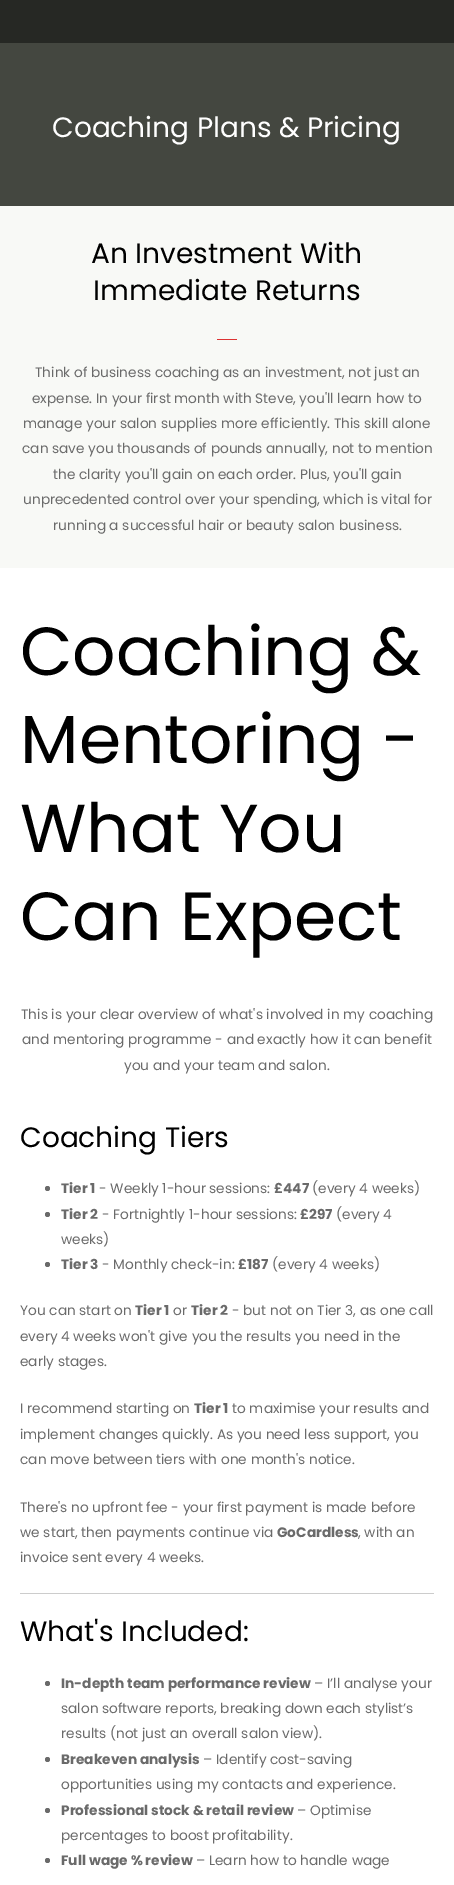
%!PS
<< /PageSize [454 1885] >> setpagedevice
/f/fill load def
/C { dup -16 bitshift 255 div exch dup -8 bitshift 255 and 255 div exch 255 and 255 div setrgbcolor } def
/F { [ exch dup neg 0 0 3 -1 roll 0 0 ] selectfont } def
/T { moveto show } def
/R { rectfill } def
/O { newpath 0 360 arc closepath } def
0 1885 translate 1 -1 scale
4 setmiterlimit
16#FFFFFF C
0 0 454 1885 R
16#262824 C
0 0 454 43 R
16#444740 C
0 43 454 163 R
/Poppins-Regular 28 F
16#FFFFFF C
(Coaching Plans & Pricing) 52 137 T
16#F8F9F6 C
0 206 454 362 R
16#000000 C
(An Investment With) 91 263 T
(Immediate Returns) 93 300 T
16#DD3333 C
217 339 20 1 R
/Poppins-Regular 13.7 F
16#6A6A6A C
(Think of business coaching as an investment, not just an) 35 377 T
(expense. In your first month with Steve, you'll learn how to) 32 403 T
(manage your salon supplies more efficiently. This skill alone) 23 428 T
(can save you thousands of pounds annually, not to mention) 22 453 T
(the clarity you'll gain on each order. Plus, you'll gain) 53 479 T
(unprecedented control over your spending, which is vital for) 23 504 T
(running a successful hair or beauty salon business.) 53 530 T
/Poppins-Regular 68 F
16#000000 C
(Coaching &) 20 675 T
(Mentoring -) 20 763 T
(What You) 20 852 T
(Can Expect) 20 940 T
/Poppins-Regular 13.7 F
16#6A6A6A C
(This is your clear overview of what's involved in my coaching) 21 1019 T
(and mentoring programme - and exactly how it can benefit) 22 1044 T
(you and your team and salon.) 124 1070 T
/Poppins-Regular 28 F
16#000000 C
(Coaching Tiers) 20 1147 T
16#6A6A6A C
47.5 1188.5 2.5 O f
/Poppins-Bold 13.7 F
(Tier 1) 61 1193 T
/Poppins-Regular 13.7 F
(- Weekly 1-hour sessions:) 99 1193 T
/Poppins-Bold 13.7 F
(£447) 274 1193 T
/Poppins-Regular 13.7 F
(\(every 4 weeks\)) 312 1193 T
47.5 1214.5 2.5 O f
/Poppins-Bold 13.7 F
(Tier 2) 61 1219 T
/Poppins-Regular 13.7 F
(- Fortnightly 1-hour sessions:) 102 1219 T
/Poppins-Bold 13.7 F
(£297) 300 1219 T
/Poppins-Regular 13.7 F
(\(every 4) 336 1219 T
(weeks\)) 61 1244 T
47.5 1264.5 2.5 O f
/Poppins-Bold 13.7 F
(Tier 3) 61 1269 T
/Poppins-Regular 13.7 F
(- Monthly check-in:) 102 1269 T
/Poppins-Bold 13.7 F
(£187) 238 1269 T
/Poppins-Regular 13.7 F
(\(every 4 weeks\)) 272 1269 T
(You can start on) 20 1315 T
/Poppins-Bold 13.7 F
(Tier 1) 135 1315 T
/Poppins-Regular 13.7 F
(or) 173 1315 T
/Poppins-Bold 13.7 F
(Tier 2) 191 1315 T
/Poppins-Regular 13.7 F
(- but not on Tier 3, as one call) 232 1315 T
(every 4 weeks won't give you the results you need in the) 20 1341 T
(early stages.) 20 1366 T
(I recommend starting on) 20 1413 T
/Poppins-Bold 13.7 F
(Tier 1) 194 1413 T
/Poppins-Regular 13.7 F
(to maximise your results and) 232 1413 T
(implement changes quickly. As you need less support, you) 20 1439 T
(can move between tiers with one month's notice.) 20 1464 T
(There's no upfront fee - your first payment is made before) 20 1512 T
(we start, then payments continue via) 20 1537 T
/Poppins-Bold 13.7 F
(GoCardless) 277 1537 T
/Poppins-Regular 13.7 F
(, with an) 358 1537 T
(invoice sent every 4 weeks.) 20 1562 T
16#CCCCCC C
20 1593 414 1 R
/Poppins-Regular 28 F
16#000000 C
(What's Included:) 20 1641 T
16#6A6A6A C
47.5 1683.5 2.5 O f
/Poppins-Bold 13.7 F
(In-depth team performance review) 61 1688 T
/Poppins-Regular 13.7 F
(– I’ll analyse your) 314 1688 T
(salon software reports, breaking down each stylist’s) 61 1713 T
(results \(not just an overall salon view\).) 61 1738 T
47.5 1759.5 2.5 O f
/Poppins-Bold 13.7 F
(Breakeven analysis) 61 1764 T
/Poppins-Regular 13.7 F
(– Identify cost-saving) 203 1764 T
(opportunities using my contacts and experience.) 61 1789 T
47.5 1810.5 2.5 O f
/Poppins-Bold 13.7 F
(Professional stock & retail review) 61 1815 T
/Poppins-Regular 13.7 F
(– Optimise) 297 1815 T
(percentages to boost profitability.) 61 1840 T
47.5 1860.5 2.5 O f
/Poppins-Bold 13.7 F
(Full wage % review) 61 1865 T
/Poppins-Regular 13.7 F
(– Learn how to handle wage) 196 1865 T
showpage
